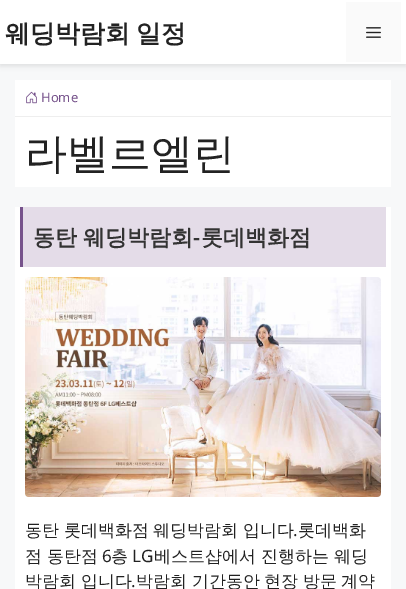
%!PS
<< /PageSize [406 589] /PageUsesTransparency true >> setpagedevice
/m/moveto load def
/C { dup -16 bitshift 255 div exch dup -8 bitshift 255 and 255 div exch 255 and 255 div setrgbcolor } def
/F { [ exch dup neg 0 0 3 -1 roll 0 0 ] selectfont } def
/T { moveto show } def
/R { rectfill } def
/A { dup .setfillconstantalpha .setstrokeconstantalpha } def
/Q { 5 dict begin { /r /h /w /y /x } { exch def } forall
  x r add y moveto x w add y 2 copy h add r arct x w add y h add x 1 index r arct
  x y h add x y r arct x y 2 copy exch w add exch r arct closepath end } def
/S { 12 dict begin { /a /b /q /h /w /y /x } { exch def } forall gsave /was 0 def
  9 -2 -9 { dup b mul 4 div /e exch def 1 sub .425 mul 2.718 exch exp 1 add a .99 .min exch div /now exch def
    1 1 now sub 1 was sub div sub A /was now def
    w h .min e 2 mul add 0 gt { x e sub y e sub w e 2 mul add h e 2 mul add
      q e add b .6 mul add w h .min 2 div e add .min 0 .max Q fill } if } for grestore end } def
/I { 5 dict begin { /h /w /y /x /name } { exch def } forall
  gsave x y translate w h scale
  w h 8 [w 0 0 h 0 0] name (r) file false 3 colorimage grestore end } def
0 .pushpdf14devicefilter
0 589 translate 1 -1 scale
4 setmiterlimit
16#F7F8F9 C
0 0 406 589 R
16#000000 C
0 2 406 64 0 2.5 .1 S
16#FFFFFF C
0 0 406 64 R
/WenQuanYiZenHei-Bold 25 F
16#222222 C
5 42 m -1 0 32 (웨딩박람회 일정) widthshow
16#FAFAFA C
346 2 55 60 R
(1.rgb) 366 27 15 11 I
16#FFFFFF C
15 80 376 36 R
16#EEEEEE C
15 116 376 1 R
(2.rgb) 26 91 11 13 I
/NotoSans-Regular 13 F
16#76528B C
(Home) 41 102 T
16#FFFFFF C
15 117 376 70 R
/WenQuanYiZenHei-Medium 42 F
16#222222 C
(라벨르엘린) 25 168 T
16#FFFFFF C
15 207 376 382 R
16#E4DCE8 C
23 207 363 60 R
16#76528B C
20 207 3 60 R
/WenQuanYiZenHei-Bold 22 F
16#333333 C
33 245 m -1 0 32 (동탄 웨딩박람회) widthshow
/NotoSans-SemiBold 22 F
(-) 193 245 T
/WenQuanYiZenHei-Bold 22 F
(롯데백화점) 201 245 T
(3.rgb) 25 277 356 220 I
/WenQuanYiZenHei-Medium 17 F
16#222222 C
25 536 m -.5 0 32 (동탄 롯데백화점 웨딩박람회 입니다) widthshow
/NotoSans-Regular 17 F
(.) 293 536 T
/WenQuanYiZenHei-Medium 17 F
(롯데백화) 298 536 T
(점 동탄점) 25 562 T
/NotoSans-Regular 17 F
(6) 102 562 T
/WenQuanYiZenHei-Medium 17 F
(층) 111 562 T
/NotoSans-Regular 17 F
(LG) 132 562 T
/WenQuanYiZenHei-Medium 17 F
(베스트샵에서 진행하는 웨딩) 154 562 T
25 587 m -.5 0 32 (박람회 입니다) widthshow
/NotoSans-Regular 17 F
(.) 131 587 T
/WenQuanYiZenHei-Medium 17 F
136 587 m -.5 0 32 (박람회 기간동안 현장 방문 계약) widthshow
.poppdf14devicefilter showpage
